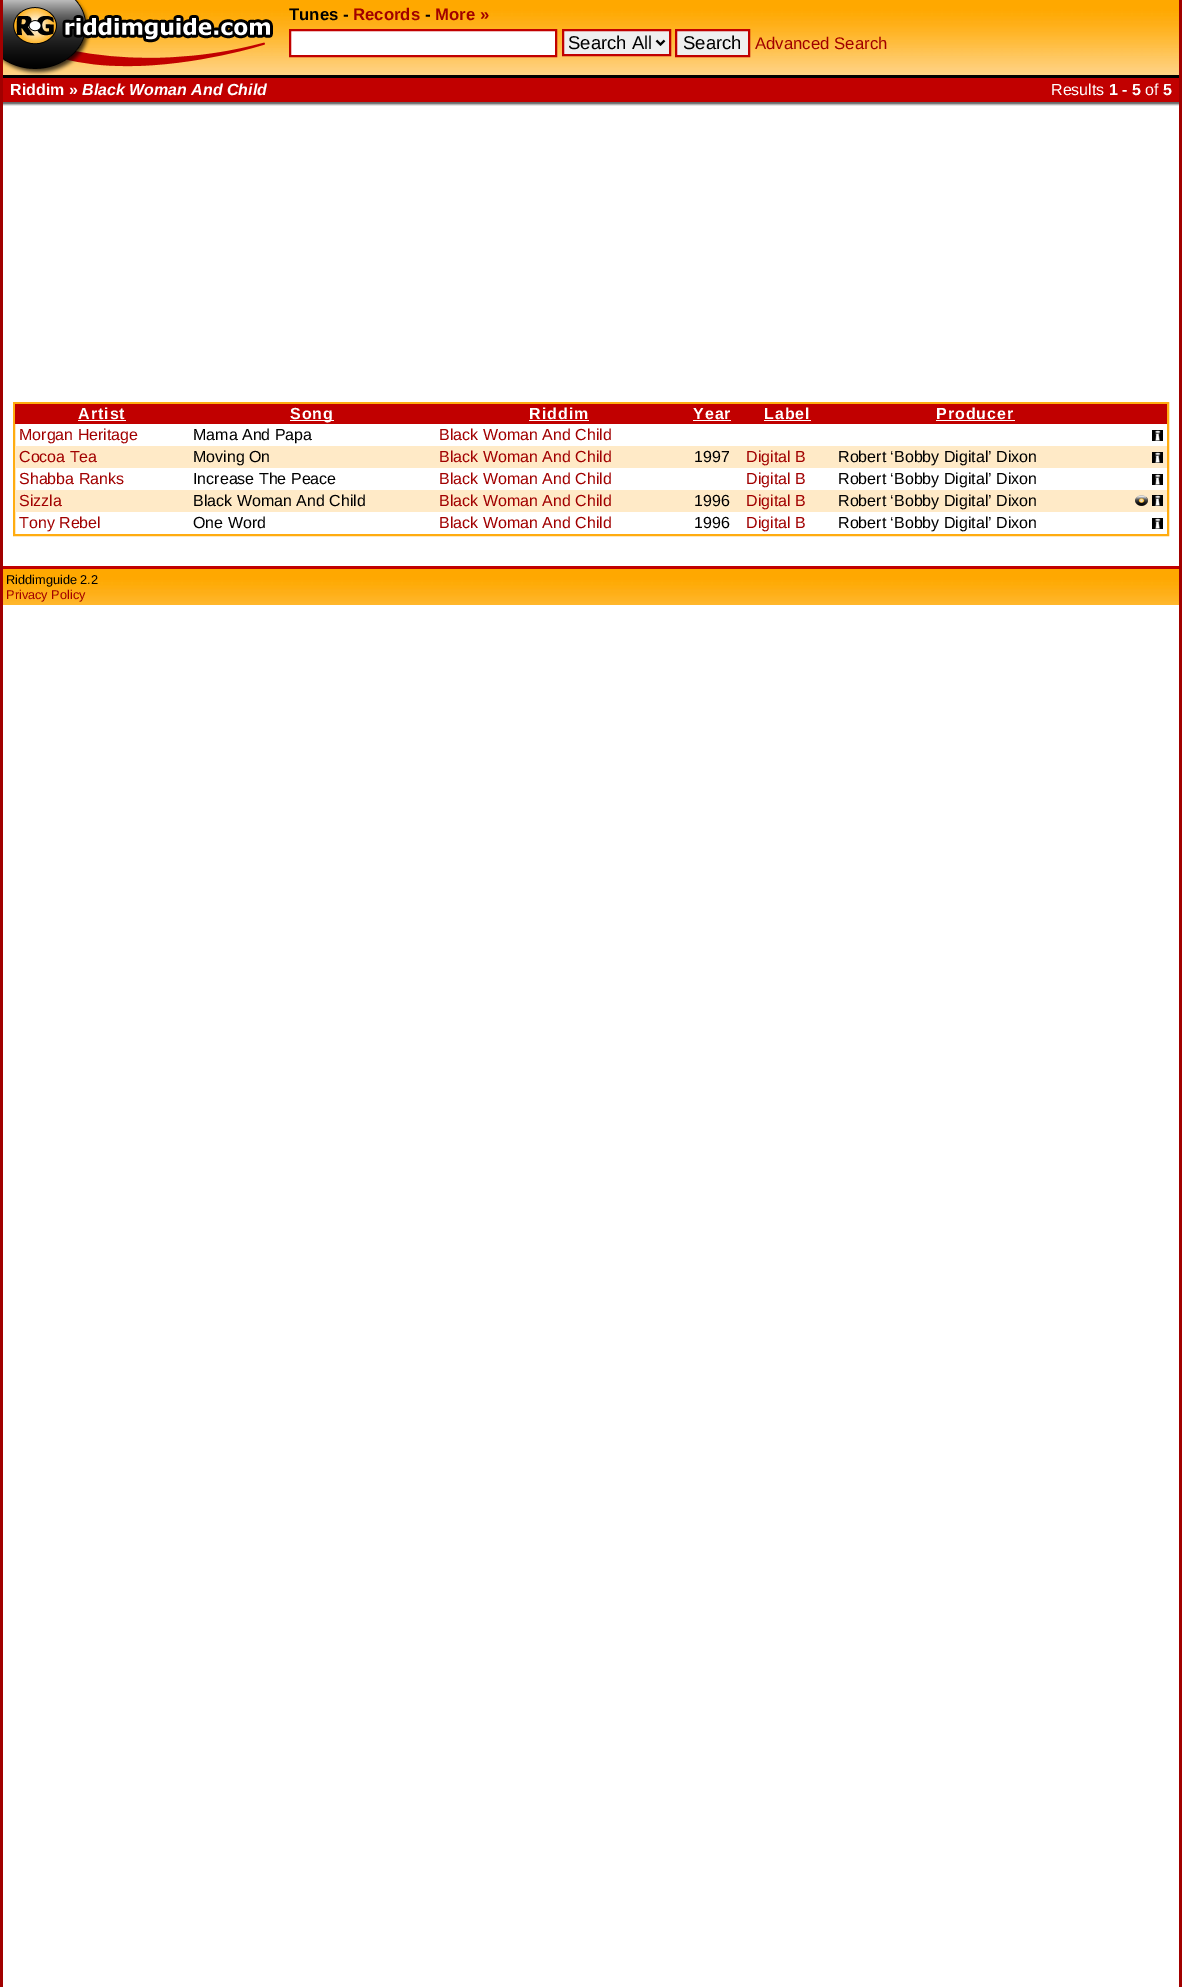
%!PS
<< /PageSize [1182 1987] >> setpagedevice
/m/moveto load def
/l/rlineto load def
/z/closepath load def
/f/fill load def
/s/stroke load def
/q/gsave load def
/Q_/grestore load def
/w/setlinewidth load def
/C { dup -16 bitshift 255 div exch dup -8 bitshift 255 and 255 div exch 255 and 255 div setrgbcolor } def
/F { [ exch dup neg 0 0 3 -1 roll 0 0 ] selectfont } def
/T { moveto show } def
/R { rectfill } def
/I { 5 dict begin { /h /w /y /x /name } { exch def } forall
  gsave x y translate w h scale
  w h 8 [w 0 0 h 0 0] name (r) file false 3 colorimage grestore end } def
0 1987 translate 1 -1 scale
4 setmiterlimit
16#FFFFFF C
0 0 1182 1987 R
16#A10000 C
1179 0 3 1987 R
0 0 3 1987 R
(1.rgb) 3 0 1176 75 I
(2.rgb) 3 0 270 75 I
/LiberationSans-Bold 16.75 F
16#000000 C
(Tunes -) 289 20 T
16#A10000 C
(Records) 353 20 T
16#000000 C
(-) 425 20 T
16#A10000 C
(More ») 435 20 T
16#FFFFFF C
290 30 m 266 0 l 0 26 l -266 0 l z q f Q_
16#C10000 C
2 w
s
16#EFEFEF C
563 30 m 107 0 l 0 25 l -107 0 l z q f Q_
16#C10000 C
s
16#000000 C
656.5 40.5 m 4 4 l 4 -4 l s
/LiberationSans-Regular 18.5 F
(Search All) 568 49 T
16#EFEFEF C
676 30 m 73 0 l 0 26 l -73 0 l z q f Q_
16#C10000 C
s
16#000000 C
(Search) 683 49 T
/LiberationSans-Regular 16.75 F
16#A10000 C
(Advanced Search) 755 49 T
16#C10000 C
3 78 1176 24 R
16#000000 C
3 75 1176 3 R
/LiberationSans-Bold 16 F
16#FFFFFF C
(Riddim ») 10 95 T
/LiberationSans-BoldItalic 16 F
(Black Woman And Child) 82 95 T
/LiberationSans-Regular 16 F
(Results) 1051 95 T
/LiberationSans-Bold 16 F
(1 - 5) 1109 95 T
/LiberationSans-Regular 16 F
(of) 1145 95 T
/LiberationSans-Bold 16 F
(5) 1163 95 T
(3.rgb) 3 102 1176 4 I
16#FFAC10 C
14 403 1154 132 rectstroke
16#C10000 C
15 404 1152 20 R
16#FFFFFF C
78 419 m 1 0 (Artist) ashow
78 420 48 1 R
290 420 44 1 R
290 419 m 1 0 (Song) ashow
529 419 m 1 0 (Riddim) ashow
529 420 60 1 R
693 419 m 1 0 (Year) ashow
693 420 38 1 R
764 419 m 1 0 (Label) ashow
764 420 47 1 R
936 419 m 1 0 (Producer) ashow
936 420 79 1 R
/LiberationSans-Regular 16 F
16#A10000 C
(Morgan Heritage) 19 440 T
16#000000 C
(Mama And Papa) 193 440 T
16#A10000 C
(Black Woman And Child) 439 440 T
(4.rgb) 1152 430 11 11 I
16#FFEAC7 C
15 446 1152 22 R
16#A10000 C
(Cocoa Tea) 19 462 T
16#000000 C
(Moving On) 193 462 T
16#A10000 C
(Black Woman And Child) 439 462 T
16#000000 C
(1997) 694 462 T
16#A10000 C
(Digital B) 746 462 T
16#000000 C
(Robert ‘Bobby Digital’ Dixon) 838 462 T
(4.rgb) 1152 452 11 11 I
16#A10000 C
(Shabba Ranks) 19 484 T
16#000000 C
(Increase The Peace) 193 484 T
16#A10000 C
(Black Woman And Child) 439 484 T
(Digital B) 746 484 T
16#000000 C
(Robert ‘Bobby Digital’ Dixon) 838 484 T
(4.rgb) 1152 474 11 11 I
16#FFEAC7 C
15 490 1152 22 R
16#A10000 C
(Sizzla) 19 506 T
16#000000 C
(Black Woman And Child) 193 506 T
16#A10000 C
(Black Woman And Child) 439 506 T
16#000000 C
(1996) 694 506 T
16#A10000 C
(Digital B) 746 506 T
16#000000 C
(Robert ‘Bobby Digital’ Dixon) 838 506 T
(5.rgb) 1135 495 13 11 I
(4.rgb) 1152 495 11 11 I
16#A10000 C
(Tony Rebel) 19 528 T
16#000000 C
(One Word) 193 528 T
16#A10000 C
(Black Woman And Child) 439 528 T
16#000000 C
(1996) 694 528 T
16#A10000 C
(Digital B) 746 528 T
16#000000 C
(Robert ‘Bobby Digital’ Dixon) 838 528 T
(4.rgb) 1152 518 11 11 I
(6.rgb) 3 569 1176 36 I
16#C10000 C
3 566 1176 3 R
/LiberationSans-Regular 12.75 F
16#000000 C
(Riddimguide 2.2) 6 584 T
16#A10000 C
(Privacy Policy) 6 599 T
showpage
